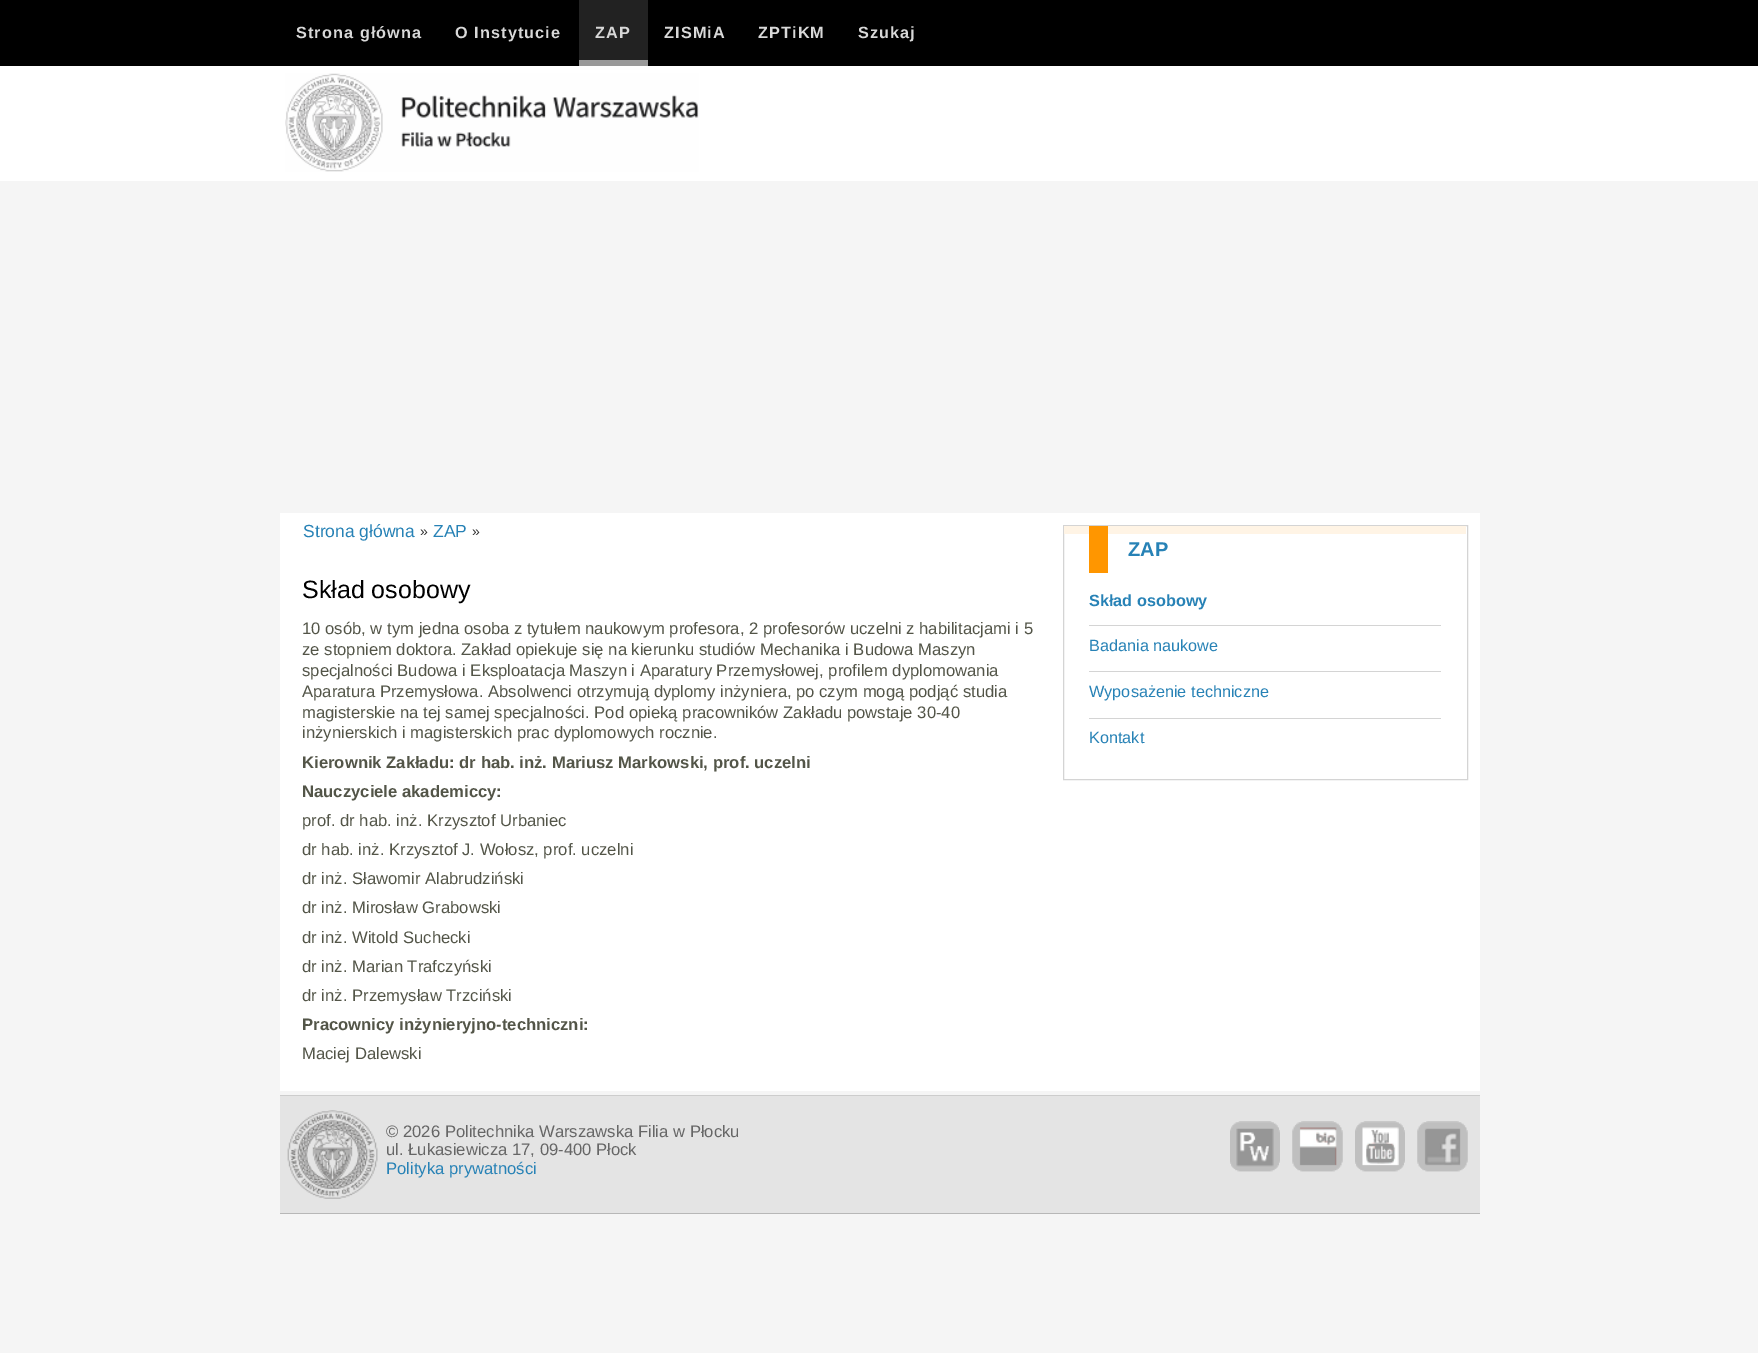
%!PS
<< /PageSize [1758 1353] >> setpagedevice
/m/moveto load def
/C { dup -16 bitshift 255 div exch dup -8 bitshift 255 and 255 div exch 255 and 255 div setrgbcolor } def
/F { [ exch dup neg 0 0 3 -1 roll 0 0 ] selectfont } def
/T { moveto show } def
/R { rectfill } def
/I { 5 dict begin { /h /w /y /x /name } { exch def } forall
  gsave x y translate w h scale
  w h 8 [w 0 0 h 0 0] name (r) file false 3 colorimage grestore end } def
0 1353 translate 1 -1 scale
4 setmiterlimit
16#F5F5F5 C
0 0 1758 1353 R
16#000000 C
0 0 1758 66 R
/LiberationSans-Bold 16.25 F
16#D8D8D8 C
296 38 m 1.1 0 (Strona główna) ashow
455 38 m 1.1 0 (O Instytucie) ashow
16#222222 C
579 0 69 60 R
16#999999 C
579 60 69 6 R
16#D8D8D8 C
595 38 m 1.1 0 (ZAP) ashow
664 38 m 1.1 0 (ZISMiA) ashow
758 38 m 1.1 0 (ZPTiKM) ashow
858 38 m 1.1 0 (Szukaj) ashow
16#FFFFFF C
0 66 1758 115 R
(1.rgb) 285 73 414 99 I
280 513 1200 578 R
/LiberationSans-Regular 17.5 F
16#2782B6 C
(Strona główna) 303 537 T
/LiberationSans-Regular 14 F
16#333333 C
(») 420 536 T
/LiberationSans-Regular 17.5 F
16#2782B6 C
(ZAP) 433 537 T
/LiberationSans-Regular 14 F
16#333333 C
(») 472 536 T
/LiberationSans-Regular 25 F
16#000000 C
(Skład osobowy) 302 598 T
/LiberationSans-Regular 16.65 F
16#535548 C
(10 osób, w tym jedna osoba z tytułem naukowym profesora, 2 profesorów uczelni z habilitacjami i 5) 302 634 T
(ze stopniem doktora. Zakład opiekuje się na kierunku studiów Mechanika i Budowa Maszyn) 302 655 T
(specjalności Budowa i Eksploatacja Maszyn i Aparatury Przemysłowej, profilem dyplomowania) 302 676 T
(Aparatura Przemysłowa. Absolwenci otrzymują dyplomy inżyniera, po czym mogą podjąć studia) 302 697 T
(magisterskie na tej samej specjalności. Pod opieką pracowników Zakładu powstaje 30-40) 302 718 T
(inżynierskich i magisterskich prac dyplomowych rocznie.) 302 738 T
/LiberationSans-Bold 16.65 F
(Kierownik Zakładu: dr hab. inż. Mariusz Markowski, prof. uczelni) 302 768 T
(Nauczyciele akademiccy:) 302 797 T
/LiberationSans-Regular 16.65 F
(prof. dr hab. inż. Krzysztof Urbaniec) 302 826 T
(dr hab. inż. Krzysztof J. Wołosz, prof. uczelni) 302 855 T
(dr inż. Sławomir Alabrudziński) 302 884 T
(dr inż. Mirosław Grabowski) 302 913 T
(dr inż. Witold Suchecki) 302 943 T
(dr inż. Marian Trafczyński) 302 972 T
(dr inż. Przemysław Trzciński) 302 1001 T
/LiberationSans-Bold 16.65 F
(Pracownicy inżynieryjno-techniczni:) 302 1030 T
/LiberationSans-Regular 16.65 F
(Maciej Dalewski) 302 1059 T
16#D4D4D4 C
1063.5 525.5 404 254 rectstroke
16#FFF4E5 C
1064 526 402 8 R
16#FF9600 C
1089 526 19 47 R
/LiberationSans-Bold 20 F
16#2782B6 C
(ZAP) 1128 556 T
/LiberationSans-Bold 16.25 F
(Skład osobowy) 1089 606 T
16#D4D4D4 C
1089 625 352 1 R
/LiberationSans-Regular 16.25 F
16#2782B6 C
(Badania naukowe) 1089 651 T
16#D4D4D4 C
1089 671 352 1 R
16#2782B6 C
(Wyposażenie techniczne) 1089 697 T
16#D4D4D4 C
1089 718 352 1 R
16#2782B6 C
(Kontakt) 1089 743 T
16#E4E4E4 C
280 1096 1200 117 R
16#B7B7B7 C
280 1213 1200 1 R
(2.rgb) 287 1110 91 89 I
16#CDCDCD C
280 1095 1200 1 R
/LiberationSans-Regular 16.65 F
16#666666 C
(© 2026 Politechnika Warszawska Filia w Płocku) 386 1137 T
(3.rgb) 1230 1121 50 51 I
(4.rgb) 1230 1121 50 51 I
(5.rgb) 1292 1121 51 51 I
(6.rgb) 1292 1121 51 51 I
(7.rgb) 1355 1121 50 51 I
(8.rgb) 1355 1121 50 51 I
(9.rgb) 1417 1121 51 51 I
(10.rgb) 1417 1121 51 51 I
(ul. Łukasiewicza 17, 09-400 Płock) 386 1155 T
16#2782B6 C
(Polityka prywatności) 386 1174 T
showpage
